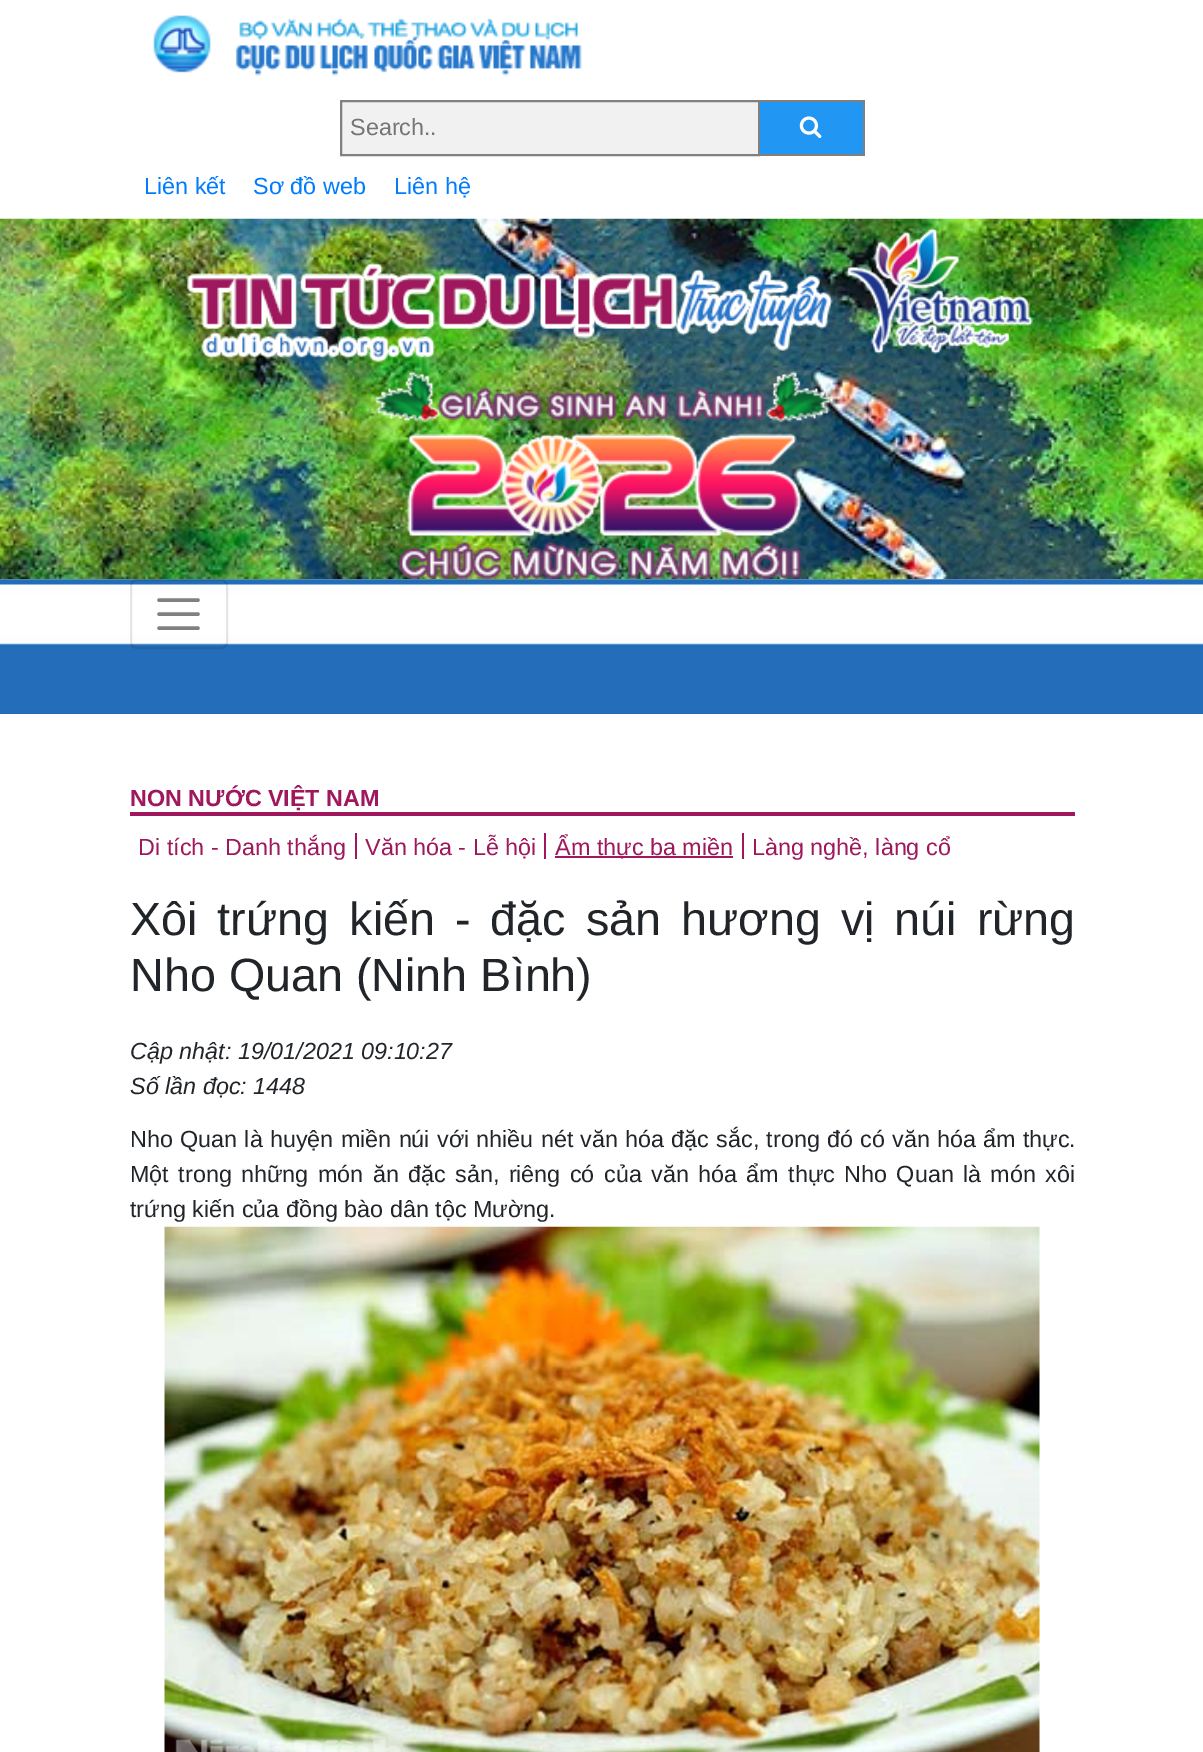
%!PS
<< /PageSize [1203 1752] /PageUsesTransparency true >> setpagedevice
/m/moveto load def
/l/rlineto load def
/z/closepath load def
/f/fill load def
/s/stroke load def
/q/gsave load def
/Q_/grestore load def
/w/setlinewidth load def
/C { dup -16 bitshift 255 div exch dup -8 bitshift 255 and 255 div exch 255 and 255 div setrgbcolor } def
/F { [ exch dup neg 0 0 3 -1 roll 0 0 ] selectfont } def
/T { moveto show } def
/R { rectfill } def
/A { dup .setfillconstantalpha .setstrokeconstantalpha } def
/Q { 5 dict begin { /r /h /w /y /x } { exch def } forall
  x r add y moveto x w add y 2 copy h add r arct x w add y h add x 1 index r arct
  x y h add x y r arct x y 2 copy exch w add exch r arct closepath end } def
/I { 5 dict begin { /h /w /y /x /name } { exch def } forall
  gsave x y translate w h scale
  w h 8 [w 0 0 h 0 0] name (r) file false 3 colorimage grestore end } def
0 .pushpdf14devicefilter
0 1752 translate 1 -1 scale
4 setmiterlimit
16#FFFFFF C
0 0 1203 1752 R
(1.rgb) 153 15 429 61 I
16#F1F1F1 C
341 101 m 418 0 l 0 54 l -418 0 l z q f Q_
16#808080 C
2 w
s
/LiberationSans-Regular 23.35 F
16#757575 C
(Search..) 350 135 T
16#2196F3 C
760 102 103 52 R
16#808080 C
760 100 105 2 R
863 100 2 56 R
760 154 105 2 R
(2.rgb) 799 116 23 23 I
16#007BFF C
(Liên kết) 144 194 T
(Sơ đồ web) 253 194 T
(Liên hệ) 394 194 T
(3.rgb) 0 218 1203 362 I
(4.rgb) 187 228 846 134 I
(6.rgb) 0 579 1203 135 I
(5.rgb) 374 371 457 209 I
0.1 A
16#000000 C
131 580 96 68 6 Q s
1 A
16#808080 C
3.5 w
1 setlinecap
159 600 m 39 0 l 159 614 m 39 0 l 159 628 m 39 0 l s
16#9F175C C
130 812 945 4 R
/LiberationSans-Bold 23.35 F
(NON NƯỚC VIỆT NAM) 130 806 T
/LiberationSans-Regular 23.35 F
(Di tích - Danh thắng) 138 855 T
(Văn hóa - Lễ hội) 365 855 T
355 833 2 26 R
555 856 178 2 R
(Ẩm thực ba miền) 555 855 T
544 833 2 26 R
(Làng nghề, làng cổ) 752 855 T
742 833 2 26 R
/LiberationSans-Regular 46.7 F
16#212529 C
130 935 m 7 0 32 (Xôi trứng kiến - đặc sản hương vị núi rừng) widthshow
(Nho Quan \(Ninh Bình\)) 130 991 T
/LiberationSans-Italic 23.35 F
(Cập nhật: 19/01/2021 09:10:27) 130 1059 T
(Số lần đọc: 1448) 130 1094 T
/LiberationSans-Regular 23.35 F
130 1147 m .75 0 32 (Nho Quan là huyện miền núi với nhiều nét văn hóa đặc sắc, trong đó có văn hóa ẩm thực.) widthshow
130 1182 m 2.9 0 32 (Một trong những món ăn đặc sản, riêng có của văn hóa ẩm thực Nho Quan là món xôi) widthshow
(trứng kiến của đồng bào dân tộc Mường.) 130 1217 T
(7.rgb) 164 1226 876 526 I
.poppdf14devicefilter showpage
